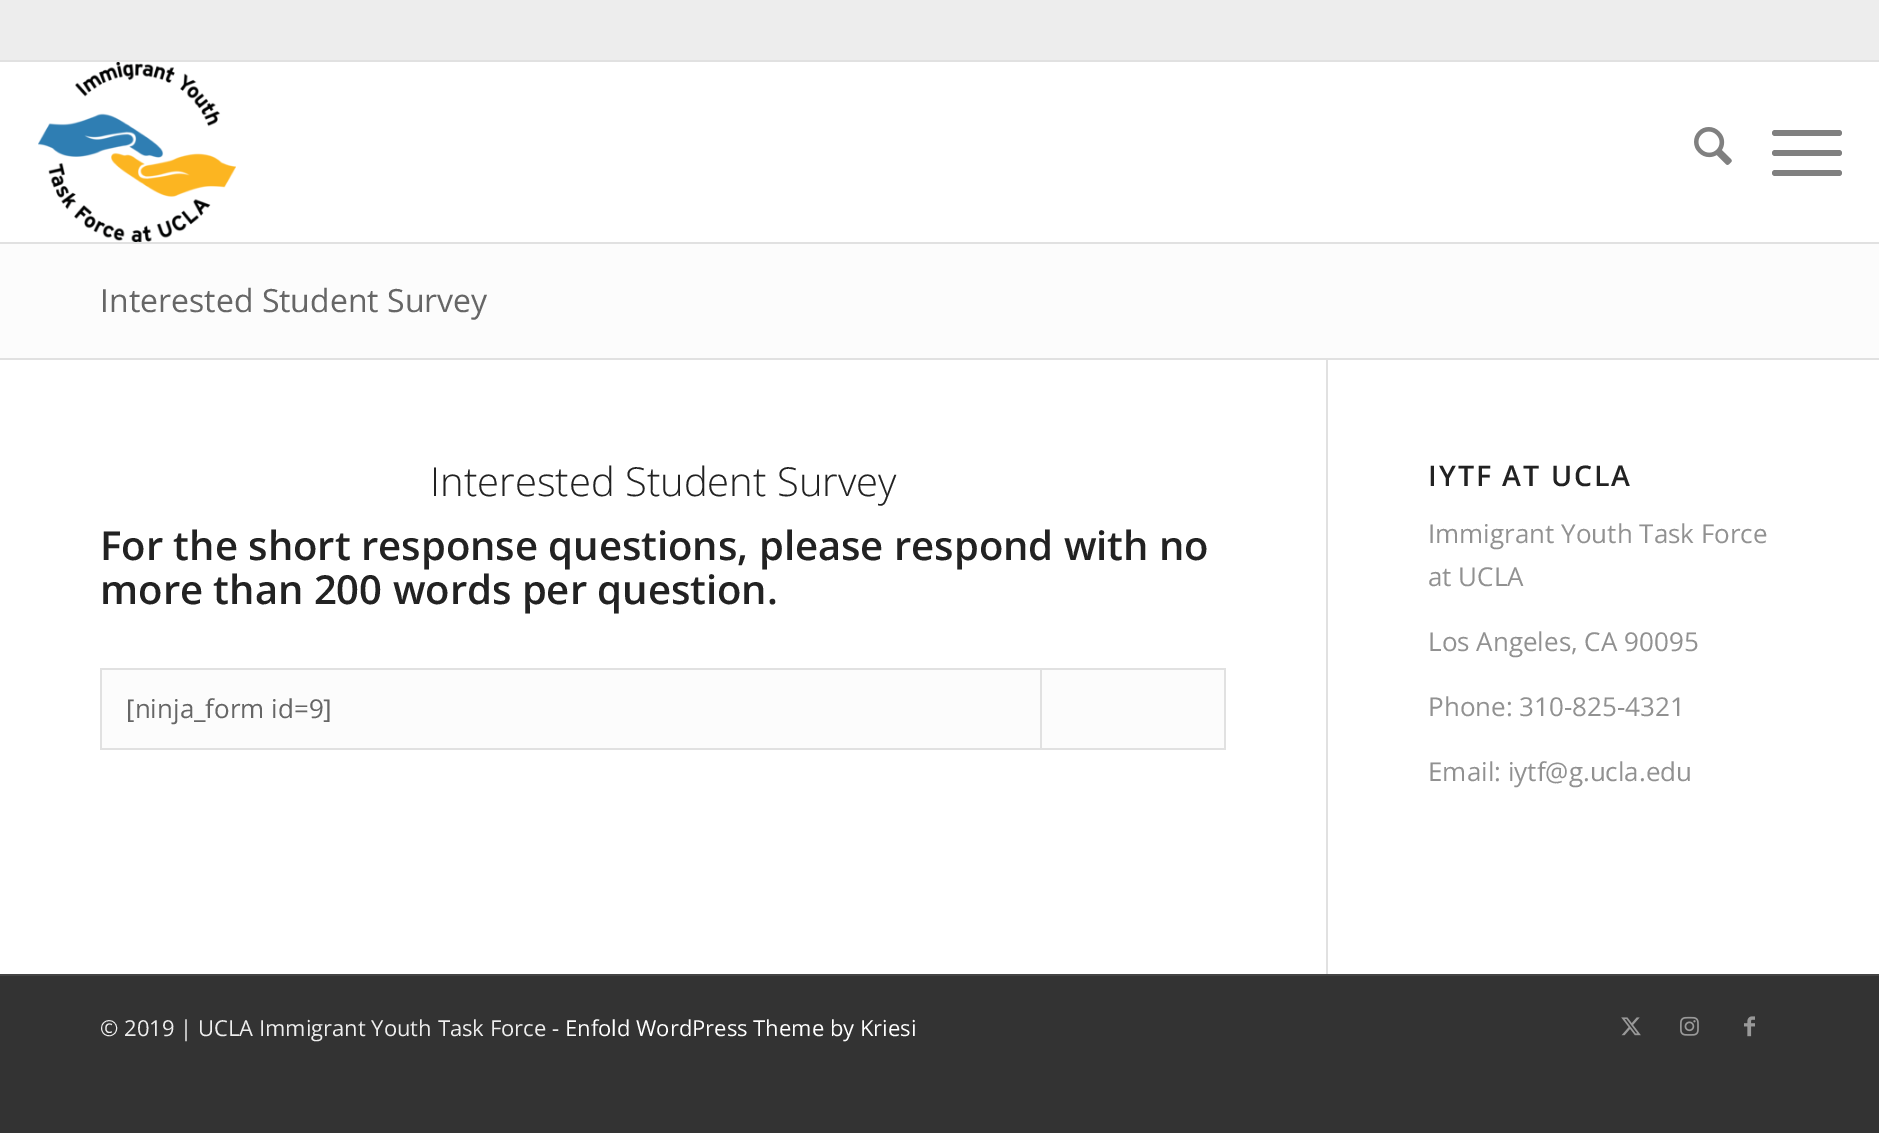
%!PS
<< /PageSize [1879 1133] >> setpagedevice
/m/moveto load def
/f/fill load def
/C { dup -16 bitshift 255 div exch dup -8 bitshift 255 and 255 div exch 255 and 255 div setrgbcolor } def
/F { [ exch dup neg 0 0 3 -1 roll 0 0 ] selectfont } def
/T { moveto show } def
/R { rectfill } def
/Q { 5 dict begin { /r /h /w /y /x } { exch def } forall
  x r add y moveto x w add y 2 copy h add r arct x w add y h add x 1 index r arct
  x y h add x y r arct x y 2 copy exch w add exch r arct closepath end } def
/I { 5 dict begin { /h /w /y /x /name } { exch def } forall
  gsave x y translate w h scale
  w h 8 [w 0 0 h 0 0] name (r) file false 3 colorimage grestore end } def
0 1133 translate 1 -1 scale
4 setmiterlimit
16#333333 C
0 0 1879 1133 R
16#FFFFFF C
0 62 1879 912 R
16#EDEDED C
0 0 1879 60 R
16#E1E1E1 C
0 60 1879 2 R
0 242 1879 2 R
(1.rgb) 38 62 198 180 I
(2.rgb) 1694 127 38 38 I
16#808080 C
1772 150 70 6 3 Q f
1772 130 70 6 3 Q f
1772 170 70 6 3 Q f
16#FCFCFC C
0 244 1879 114 R
/OpenSans-Regular 32 F
16#666666 C
(Interested Student Survey) 100 312 T
16#E1E1E1 C
0 358 1879 2 R
/OpenSans-Light 40 F
16#222222 C
(Interested Student Survey) 430 496 T
/OpenSans-SemiBold 40 F
(For the short response questions, please respond with no) 100 560 T
(more than 200 words per question.) 100 604 T
16#FCFCFC C
102 670 1122 78 R
16#E1E1E1 C
100 668 1126 2 R
1224 668 2 82 R
1040 748 186 2 R
1040 668 2 82 R
100 748 942 2 R
100 668 2 82 R
/OpenSans-Regular 26 F
16#666666 C
([ninja_form id=9]) 126 718 T
16#E1E1E1 C
1326 360 2 616 R
/OpenSans-SemiBold 28.5 F
16#222222 C
1428 486 m 2 0 (IYTF AT UCLA) ashow
/OpenSans-Regular 26 F
16#919191 C
(Immigrant Youth Task Force) 1428 543 T
(at UCLA) 1428 586 T
(Los Angeles, CA 90095) 1428 651 T
(Phone: 310-825-4321) 1428 716 T
(Email: iytf@g.ucla.edu) 1428 781 T
16#444444 C
0 974 1879 2 R
/OpenSans-Regular 22 F
16#EEEEEE C
(© 2019 | UCLA Immigrant Youth Task Force -) 100 1036 T
16#FFFFFF C
(Enfold WordPress Theme by Kriesi) 565 1036 T
(3.rgb) 1621 1017 20 19 I
(4.rgb) 1680 1016 19 20 I
(5.rgb) 1744 1016 11 21 I
showpage
